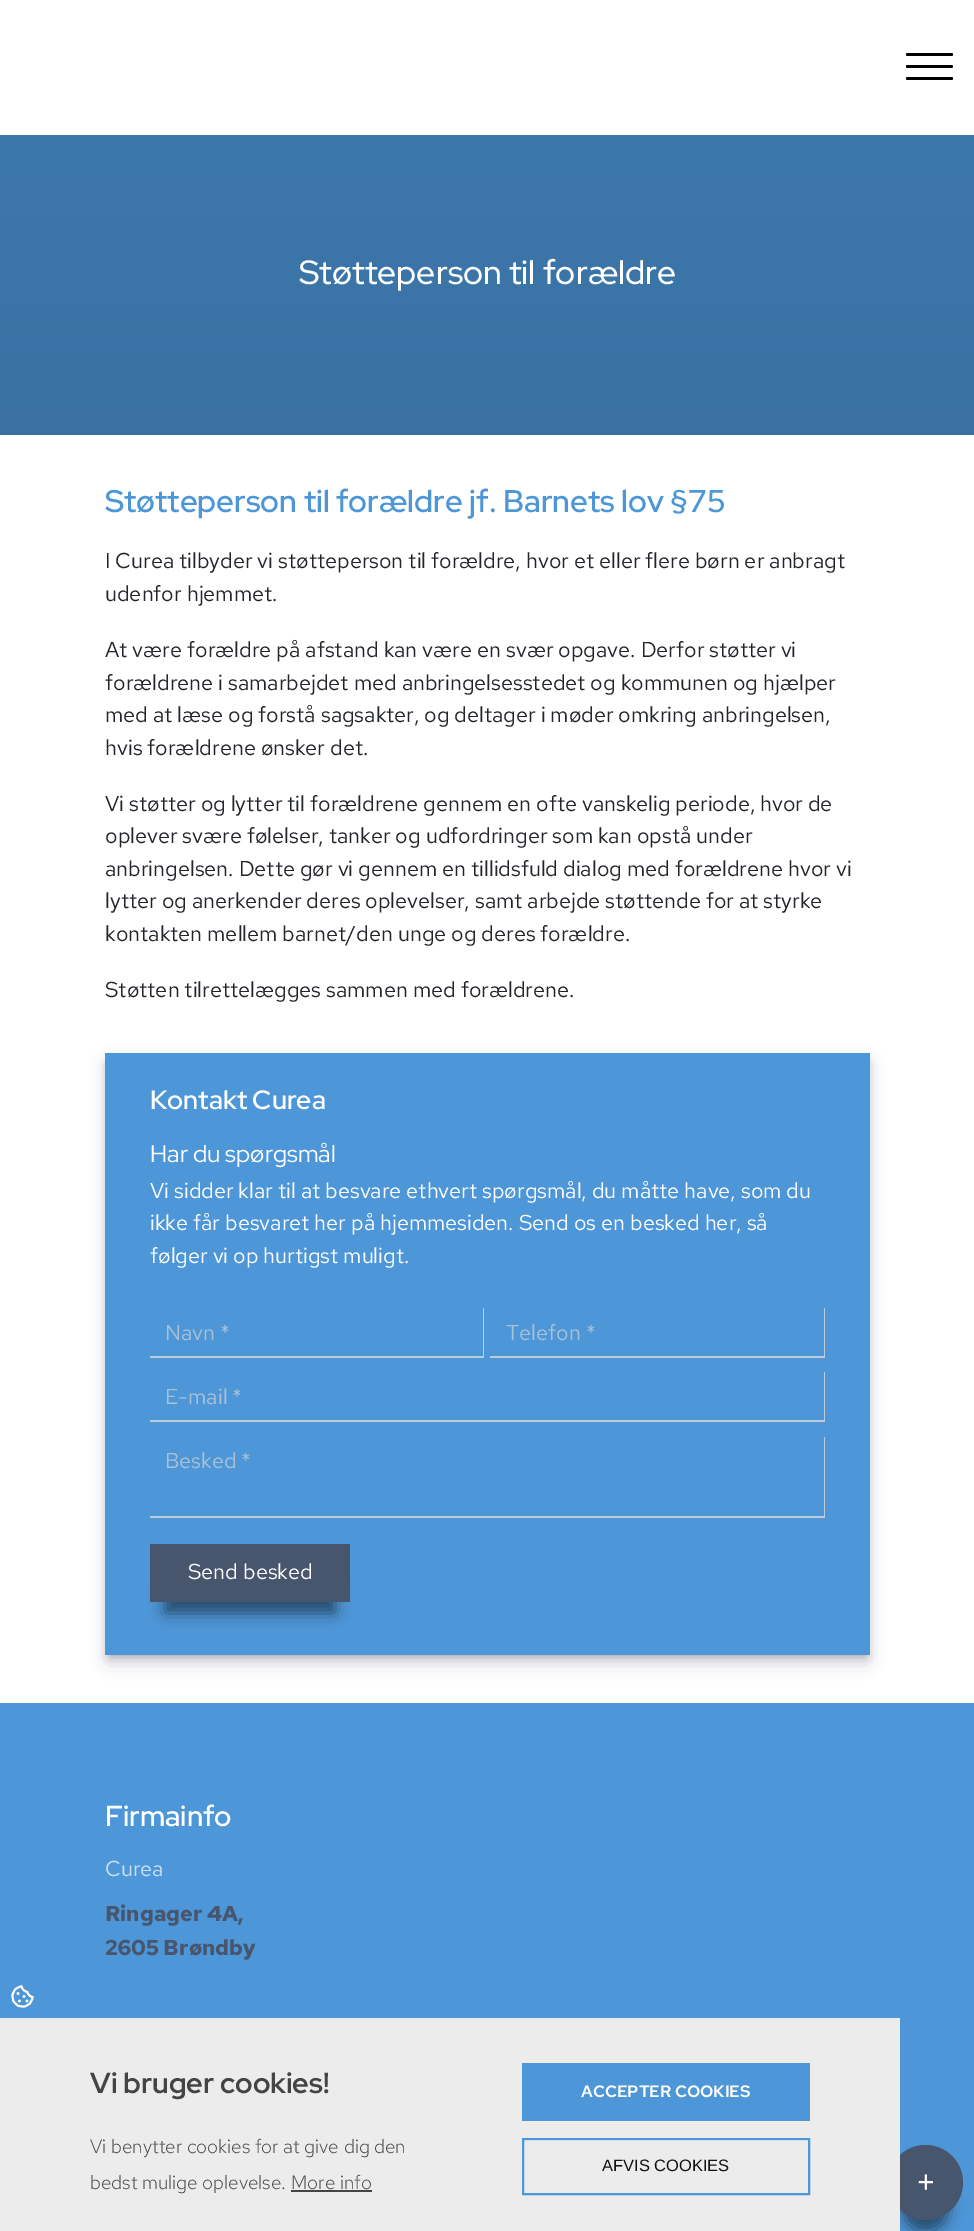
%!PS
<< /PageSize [974 2231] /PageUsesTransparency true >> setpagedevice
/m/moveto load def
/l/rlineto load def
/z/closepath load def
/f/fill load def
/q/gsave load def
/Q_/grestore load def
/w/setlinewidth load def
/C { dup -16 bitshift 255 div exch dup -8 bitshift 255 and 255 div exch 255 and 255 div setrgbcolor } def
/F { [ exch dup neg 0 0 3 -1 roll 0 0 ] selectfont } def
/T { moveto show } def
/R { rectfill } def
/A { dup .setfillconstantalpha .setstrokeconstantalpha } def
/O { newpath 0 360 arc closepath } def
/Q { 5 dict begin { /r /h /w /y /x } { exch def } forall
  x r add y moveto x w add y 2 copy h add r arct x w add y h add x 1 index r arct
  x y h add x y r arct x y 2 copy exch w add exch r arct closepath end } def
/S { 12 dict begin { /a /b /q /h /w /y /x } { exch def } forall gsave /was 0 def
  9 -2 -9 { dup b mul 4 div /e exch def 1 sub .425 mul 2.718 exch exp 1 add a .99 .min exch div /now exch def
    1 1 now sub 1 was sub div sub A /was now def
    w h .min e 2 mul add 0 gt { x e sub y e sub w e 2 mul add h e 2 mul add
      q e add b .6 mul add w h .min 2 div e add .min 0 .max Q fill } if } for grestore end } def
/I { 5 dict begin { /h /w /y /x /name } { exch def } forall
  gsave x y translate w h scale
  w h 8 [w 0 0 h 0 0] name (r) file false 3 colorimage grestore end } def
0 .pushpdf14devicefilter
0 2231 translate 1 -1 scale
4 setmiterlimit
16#FFFFFF C
0 0 974 2231 R
16#000000 C
906 65 47 3 1.5 Q f
906 53 47 3 1.5 Q f
906 77 47 3 1.5 Q f
q 0 135 m 974 0 l 0 300 l -974 0 l z clip newpath
<< /ShadingType 2 /ColorSpace /DeviceRGB /Coords [488 435 488 135] /Extend [true true] /Function << /FunctionType 2 /Domain [0 1] /C0 [.227 .443 .635] /C1 [.239 .471 .678] /N 1 >> >> shfill Q_
/RedHatDisplay-Medium 33.6 F
16#FFFFFF C
(Støtteperson til forældre) 299 284 T
/RedHatDisplay-SemiBold 31.25 F
16#4D96D7 C
(Støtteperson til forældre jf. Barnets lov §75) 105 512 T
/RedHatText-Regular 21.6 F
16#212429 C
(I Curea tilbyder vi støtteperson til forældre, hvor et eller flere børn er anbragt) 105 568 T
(udenfor hjemmet.) 105 601 T
(At være forældre på afstand kan være en svær opgave. Derfor støtter vi) 105 657 T
(forældrene i samarbejdet med anbringelsesstedet og kommunen og hjælper) 105 690 T
(med at læse og forstå sagsakter, og deltager i møder omkring anbringelsen,) 105 722 T
(hvis forældrene ønsker det.) 105 755 T
(Vi støtter og lytter til forældrene gennem en ofte vanskelig periode, hvor de) 105 811 T
(oplever svære følelser, tanker og udfordringer som kan opstå under) 105 843 T
(anbringelsen. Dette gør vi gennem en tillidsfuld dialog med forældrene hvor vi) 105 876 T
(lytter og anerkender deres oplevelser, samt arbejde støttende for at styrke) 105 908 T
(kontakten mellem barnet/den unge og deres forældre.) 105 941 T
(Støtten tilrettelægges sammen med forældrene.) 105 997 T
16#000000 C
110 1062 756 593 0 5 .3 S
16#32325D C
108 1065 759 596 0 9 .25 S
16#4D96D7 C
105 1053 765 602 R
/RedHatDisplay-SemiBold 26.5 F
16#FFFFFF C
(Kontakt Curea) 150 1109 T
/RedHatDisplay-Regular 24 F
(Har du spørgsmål) 150 1162 T
/RedHatText-Regular 21.6 F
(Vi sidder klar til at besvare ethvert spørgsmål, du måtte have, som du) 150 1198 T
(ikke får besvaret her på hjemmesiden. Send os en besked her, så) 150 1230 T
(følger vi op hurtigst muligt.) 150 1263 T
16#BDCCD9 C
484 1308 m 0 50 l -1 -2 l 0 -48 l z f
0.8 A
16#DADADA C
484 1358 m -334 0 l 0 -2 l 333 0 l z f
1 A
16#ABC1D4 C
(Navn *) 165 1340 T
16#BDCCD9 C
825 1308 m 0 50 l -1 -2 l 0 -48 l z f
0.8 A
16#DADADA C
825 1358 m -335 0 l 0 -2 l 334 0 l z f
1 A
16#ABC1D4 C
(Telefon *) 506 1340 T
16#BDCCD9 C
825 1372 m 0 50 l -1 -2 l 0 -48 l z f
0.8 A
16#DADADA C
825 1422 m -675 0 l 0 -2 l 674 0 l z f
1 A
16#ABC1D4 C
(E-mail *) 165 1404 T
16#BDCCD9 C
825 1437 m 0 81 l -1 -2 l 0 -79 l z f
0.8 A
16#DADADA C
825 1518 m -675 0 l 0 -2 l 674 0 l z f
1 A
16#ABC1D4 C
(Besked *) 165 1468 T
16#000000 C
165 1584 170 29 0 7.5 .5 S
16#47556D C
150 1544 200 58 R
16#FFFFFF C
(Send besked) 188 1579 T
16#4D96D7 C
0 1703 974 528 R
/RedHatDisplay-SemiBold 28.75 F
16#FFFFFF C
(Firmainfo) 105 1826 T
/RedHatText-Regular 21.6 F
16#CAE0F3 C
(Curea) 105 1876 T
/RedHatText-Bold 21.6 F
16#47556D C
(Ringager 4A,) 105 1921 T
(2605 Brøndby) 105 1955 T
16#000000 C
903 2186 45 45 22.5 7.5 .5 S
16#47556D C
925.5 2182.5 37.5 O f
/RedHatText-Regular 36 F
16#FFFFFF C
(+) 915 2195 T
16#ECECEC C
0 2018 900 213 R
(1.rgb) 11 1985 23 23 I
/RedHatDisplay-Bold 28.75 F
16#444444 C
(Vi bruger cookies!) 90 2093 T
/RedHatText-Light 19.25 F
(Vi benytter cookies for at give dig den) 90 2153 T
(bedst mulige oplevelse.) 90 2189 T
(More info) 291 2189 T
291 2190 81 2 R
16#4D96D7 C
522 2063 288 58 R
/RedHatText-SemiBold 16.5 F
16#FFFFFF C
(ACCEPTER COOKIES) 581 2097 T
524 2140 285 1 R
16#4D96D7 C
2 w
523 2139 286 55 rectstroke
/LiberationSans-Regular 16.5 F
16#101115 C
(AFVIS COOKIES) 602 2171 T
.poppdf14devicefilter showpage
